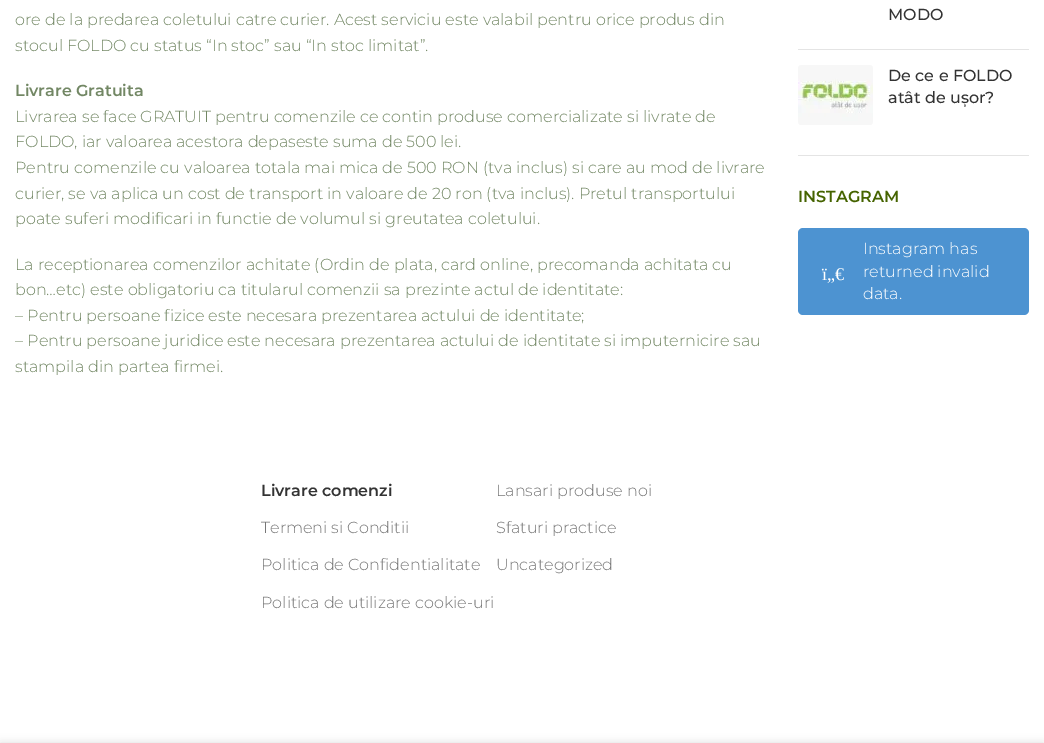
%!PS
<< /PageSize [1044 743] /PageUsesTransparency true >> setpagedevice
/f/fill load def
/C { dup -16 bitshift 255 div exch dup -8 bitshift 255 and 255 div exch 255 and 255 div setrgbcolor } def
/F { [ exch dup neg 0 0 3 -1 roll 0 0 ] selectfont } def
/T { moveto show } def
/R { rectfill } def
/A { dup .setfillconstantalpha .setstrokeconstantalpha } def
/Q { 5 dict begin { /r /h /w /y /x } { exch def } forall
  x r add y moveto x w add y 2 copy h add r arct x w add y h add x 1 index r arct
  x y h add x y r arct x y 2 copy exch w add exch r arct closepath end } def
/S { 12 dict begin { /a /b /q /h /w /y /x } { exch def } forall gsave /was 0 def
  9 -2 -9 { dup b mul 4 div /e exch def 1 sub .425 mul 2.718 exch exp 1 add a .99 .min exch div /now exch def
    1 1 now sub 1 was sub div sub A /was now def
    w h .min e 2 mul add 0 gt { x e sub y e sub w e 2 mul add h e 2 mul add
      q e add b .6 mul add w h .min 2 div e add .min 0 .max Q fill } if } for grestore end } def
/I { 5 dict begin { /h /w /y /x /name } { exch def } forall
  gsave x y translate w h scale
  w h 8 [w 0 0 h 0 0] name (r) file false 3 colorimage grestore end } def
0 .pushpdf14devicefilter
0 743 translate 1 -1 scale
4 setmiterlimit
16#FFFFFF C
0 0 1044 743 R
/Montserrat-Light 16 F
16#728764 C
(ore de la predarea coletului catre curier. Acest serviciu este valabil pentru orice produs din) 15 25 T
(stocul FOLDO cu status “In stoc” sau “In stoc limitat”.) 15 51 T
/Montserrat-SemiBold 16 F
(Livrare Gratuita) 15 96 T
/Montserrat-Light 16 F
(Livrarea se face GRATUIT pentru comenzile ce contin produse comercializate si livrate de) 15 122 T
(FOLDO, iar valoarea acestora depaseste suma de 500 lei.) 15 147 T
(Pentru comenzile cu valoarea totala mai mica de 500 RON \(tva inclus\) si care au mod de livrare) 15 173 T
(curier, se va aplica un cost de transport in valoare de 20 ron \(tva inclus\). Pretul transportului) 15 199 T
(poate suferi modificari in functie de volumul si greutatea coletului.) 15 224 T
(La receptionarea comenzilor achitate \(Ordin de plata, card online, precomanda achitata cu) 15 270 T
(bon…etc\) este obligatoriu ca titularul comenzii sa prezinte actul de identitate:) 15 295 T
(– Pentru persoane fizice este necesara prezentarea actului de identitate;) 15 321 T
(– Pentru persoane juridice este necesara prezentarea actului de identitate si imputernicire sau) 15 346 T
(stampila din partea firmei.) 15 372 T
16#E4E4E4 C
798 155 231 1 R
798 49 231 1 R
/Montserrat-Medium 16 F
16#333333 C
(MODO) 888 20 T
(1.rgb) 798 65 75 60 I
(De ce e FOLDO) 888 81 T
(atât de ușor?) 888 103 T
/Montserrat-SemiBold 16 F
16#456300 C
(INSTAGRAM) 798 202 T
16#4D93D1 C
798 228 231 87 5 Q f
/Montserrat-Light 16 F
16#FFFFFF C
(Instagram has) 863 254 T
/LiberationSerif-Regular 18 F
(ï„€) 822 280 T
/Montserrat-Light 16 F
(returned invalid) 863 277 T
(data.) 863 299 T
/Montserrat-SemiBold 16 F
16#333333 C
(Livrare comenzi) 261 496 T
/Montserrat-Light 16 F
16#777777 C
(Termeni si Conditii) 261 533 T
(Politica de Confidentialitate) 261 570 T
(Politica de utilizare cookie-uri) 261 608 T
(Lansari produse noi) 496 496 T
(Sfaturi practice) 496 533 T
(Uncategorized) 496 570 T
16#000000 C
0 743 1044 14 0 4.5 .14 S
.poppdf14devicefilter showpage
